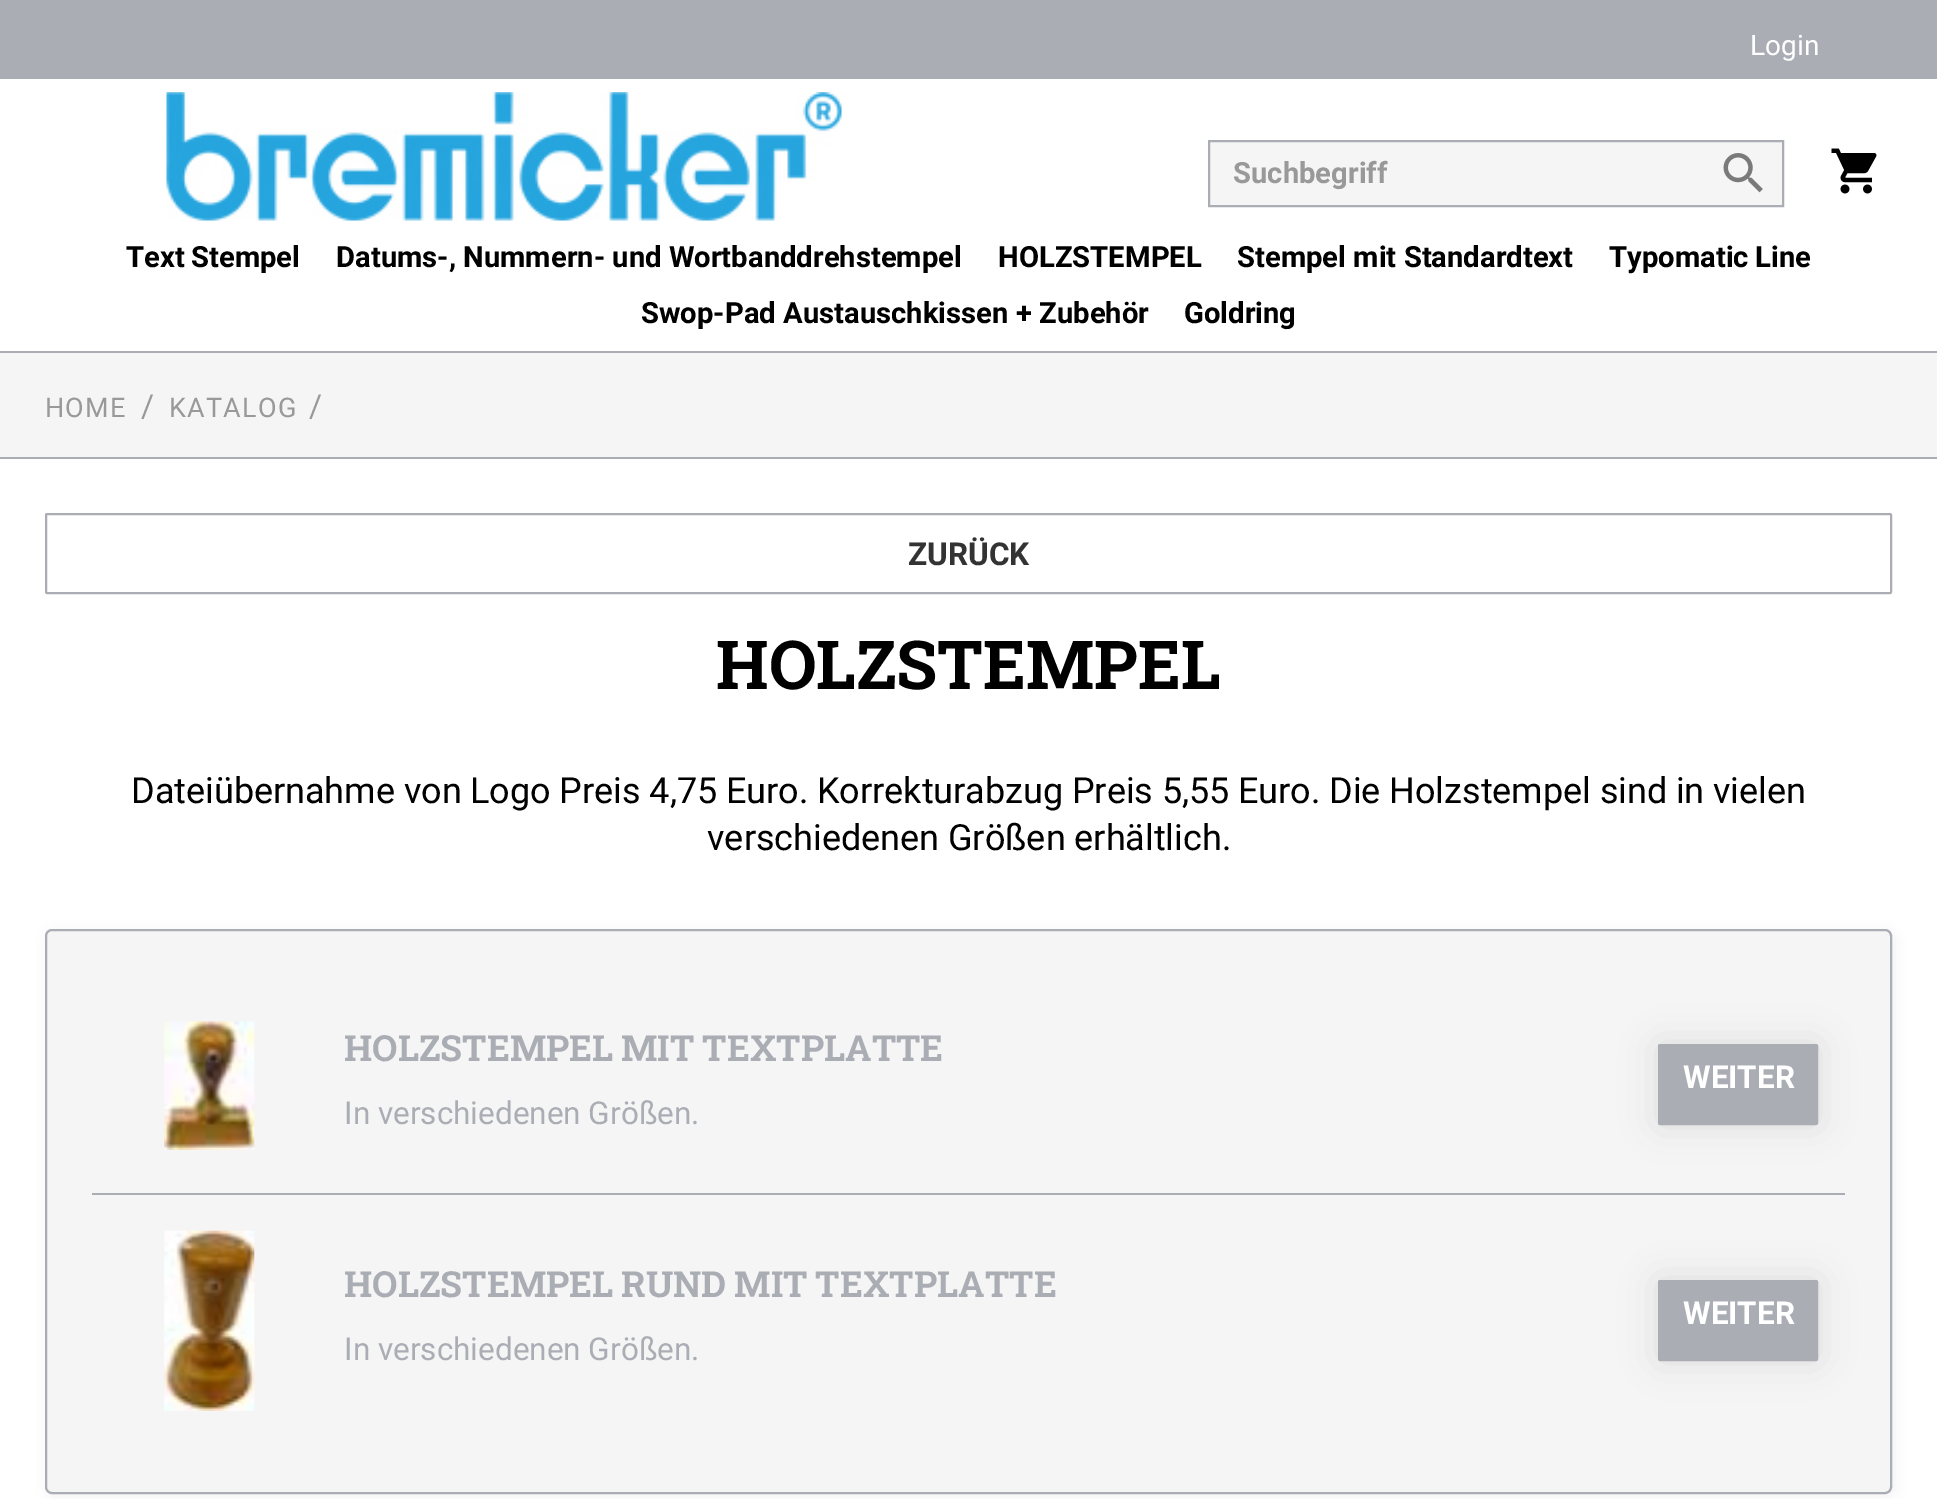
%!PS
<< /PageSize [1937 1499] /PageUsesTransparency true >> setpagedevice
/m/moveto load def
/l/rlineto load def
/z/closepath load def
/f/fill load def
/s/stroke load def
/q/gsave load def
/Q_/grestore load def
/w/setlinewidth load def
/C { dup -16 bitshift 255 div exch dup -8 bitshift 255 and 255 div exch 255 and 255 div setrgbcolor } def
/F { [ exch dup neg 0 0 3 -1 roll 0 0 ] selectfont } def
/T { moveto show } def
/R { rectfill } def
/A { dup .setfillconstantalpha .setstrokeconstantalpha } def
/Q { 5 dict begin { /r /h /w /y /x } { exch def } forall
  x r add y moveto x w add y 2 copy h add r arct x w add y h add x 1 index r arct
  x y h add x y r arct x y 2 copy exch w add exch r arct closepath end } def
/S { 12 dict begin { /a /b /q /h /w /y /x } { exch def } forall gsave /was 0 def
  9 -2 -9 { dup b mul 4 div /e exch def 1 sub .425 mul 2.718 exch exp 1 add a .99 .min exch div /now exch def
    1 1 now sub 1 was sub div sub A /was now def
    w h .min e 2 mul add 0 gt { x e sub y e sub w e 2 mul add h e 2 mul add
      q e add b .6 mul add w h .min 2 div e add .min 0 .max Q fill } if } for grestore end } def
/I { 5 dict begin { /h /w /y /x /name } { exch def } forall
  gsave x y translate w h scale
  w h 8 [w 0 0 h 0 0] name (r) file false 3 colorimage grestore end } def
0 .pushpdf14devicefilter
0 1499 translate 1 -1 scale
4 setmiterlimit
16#FFFFFF C
0 0 1937 1499 R
16#ABADB5 C
0 0 1937 79 R
/Roboto-Regular 28 F
16#FFFFFF C
(Login) 1750 55 T
(1.rgb) 166 92 676 129 I
16#F5F5F5 C
1209 141 m 574 0 l 0 65 l -574 0 l z q f Q_
16#ABADB5 C
2 w
s
/Roboto-Bold 29.25 F
16#999999 C
(Suchbegriff) 1233 183 T
(2.rgb) 1723 153 40 40 I
(3.rgb) 1831 148 46 46 I
16#000000 C
126 267 m -1 0 32 (Text Stempel) widthshow
(Datums-, Nummern- und Wortbanddrehstempel) 336 267 T
(HOLZSTEMPEL) 998 267 T
(Stempel mit Standardtext) 1237 267 T
1609 267 m -1 0 32 (Typomatic Line) widthshow
(Swop-Pad Austauschkissen + Zubehör) 641 323 T
(Goldring) 1184 323 T
16#F5F5F5 C
0 353 1937 104 R
16#ABADB5 C
0 351 1937 2 R
0 457 1937 2 R
/Roboto-Regular 27 F
16#999999 C
45 417 m 1.25 0 (HOME) ashow
/Roboto-Regular 31.5 F
(/) 141 417 T
/Roboto-Regular 27 F
169 417 m 1.25 0 (KATALOG) ashow
/Roboto-Regular 31.5 F
(/) 309 417 T
16#ABADB5 C
46 514 1845 79 1 Q s
/Roboto-Bold 31.5 F
16#333333 C
(ZURÜCK) 908 565 T
/RobotoSlab-Bold 67.5 F
16#000000 C
(HOLZSTEMPEL) 716 689 T
/Roboto-Regular 36 F
131 803 m -.25 0 32 (Dateiübernahme von Logo Preis 4,75 Euro. Korrekturabzug Preis 5,55 Euro. Die Holzstempel sind in vielen) widthshow
(verschiedenen Größen erhältlich.) 707 850 T
47 932 1848 564 7 7 .05 S
16#F5F5F5 C
46 930 1845 563 6 Q q f Q_
16#ABADB5 C
s
(4.rgb) 164 1021 91 129 I
/RobotoSlab-Bold 36 F
344 1061 m -1 0 32 (HOLZSTEMPEL MIT TEXTPLATTE) widthshow
/Roboto-Regular 31.5 F
(In verschiedenen Größen.) 344 1124 T
16#000000 C
1658 1044 160 81 2 18 .1 S
16#ABADB5 C
1659 1045 158 79 1 Q q f Q_
s
/Roboto-Bold 31.5 F
16#FFFFFF C
(WEITER) 1683 1088 T
16#ABADB5 C
92 1193 1753 2 R
(5.rgb) 164 1230 91 181 I
/RobotoSlab-Bold 36 F
344 1297 m -1 0 32 (HOLZSTEMPEL RUND MIT TEXTPLATTE) widthshow
/Roboto-Regular 31.5 F
(In verschiedenen Größen.) 344 1360 T
16#000000 C
1658 1280 160 81 2 18 .1 S
16#ABADB5 C
1659 1281 158 79 1 Q q f Q_
s
/Roboto-Bold 31.5 F
16#FFFFFF C
(WEITER) 1683 1324 T
.poppdf14devicefilter showpage
